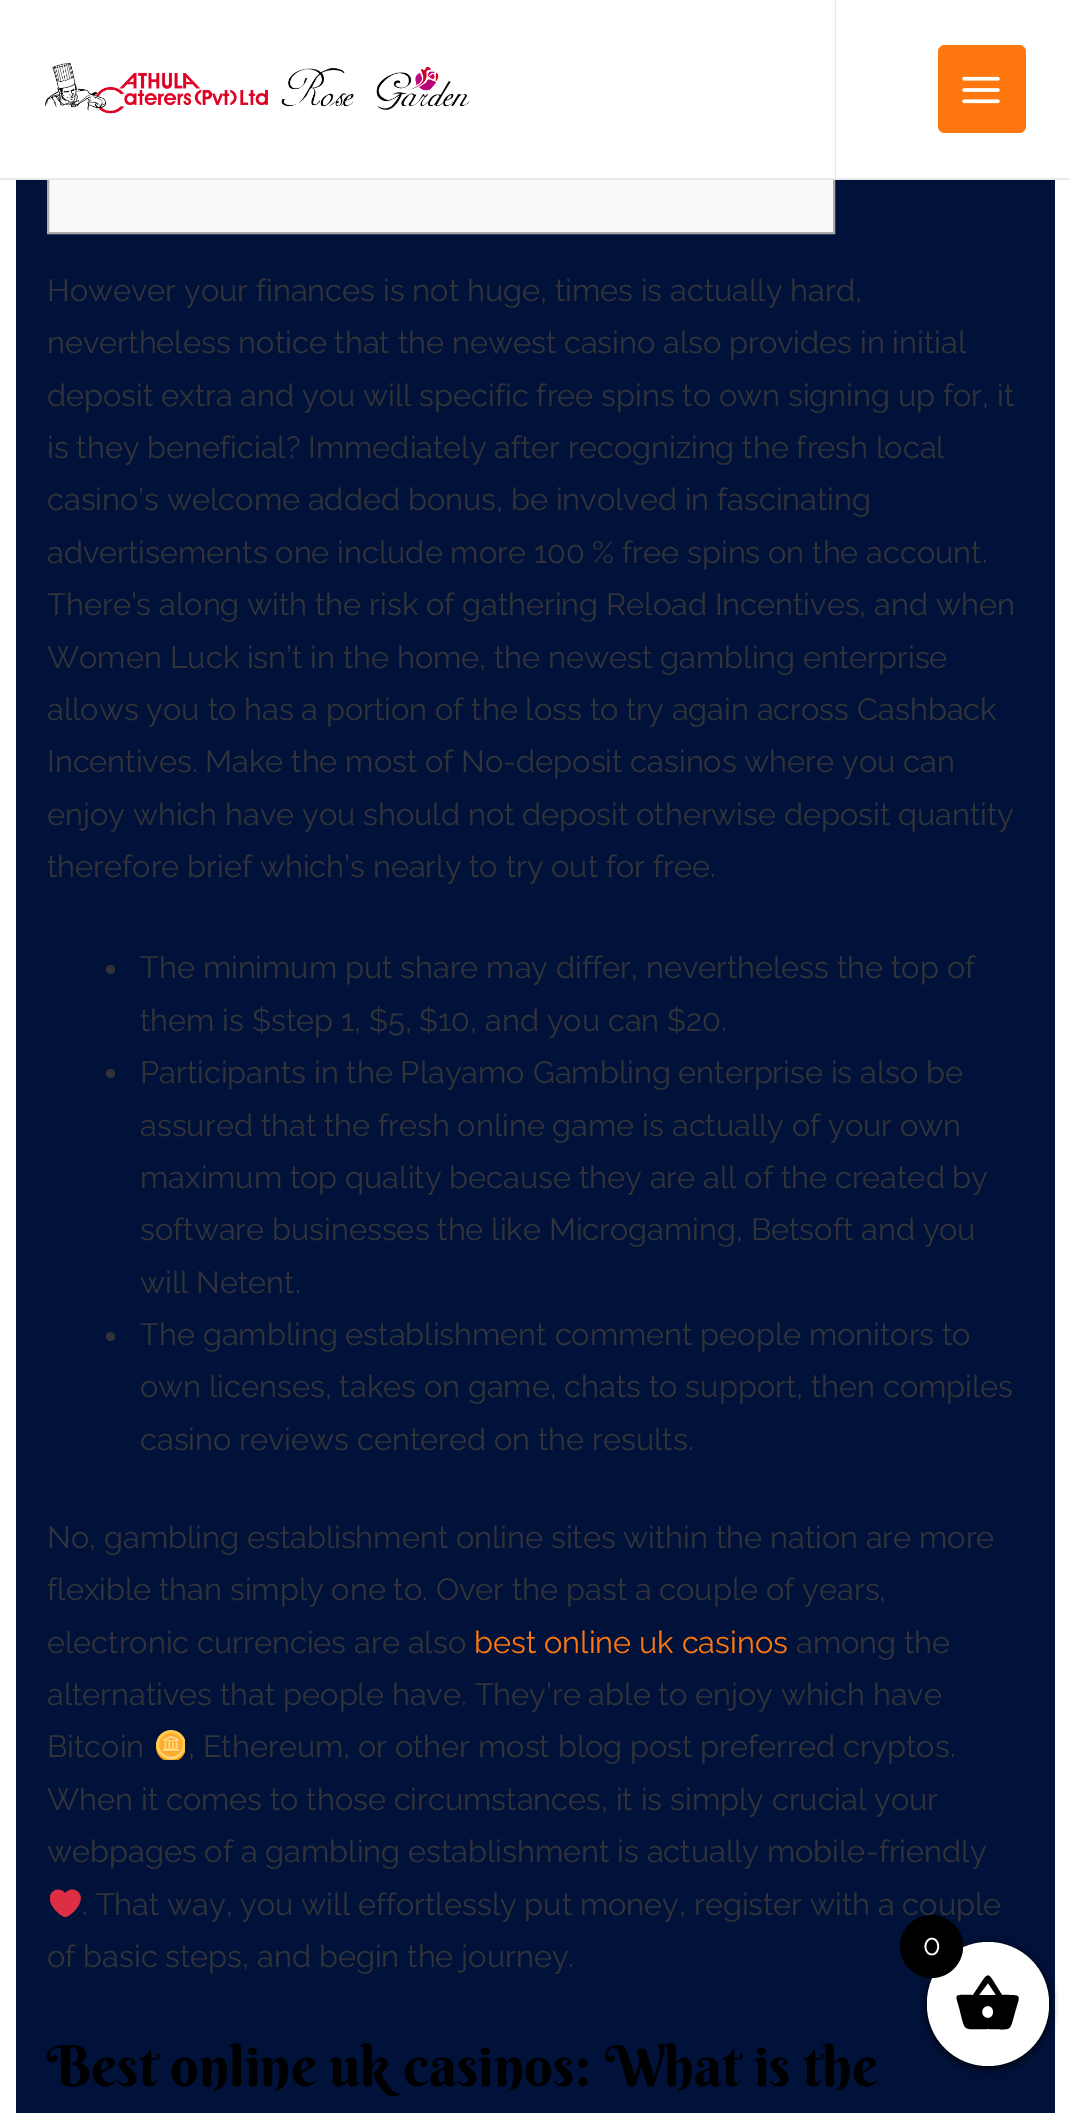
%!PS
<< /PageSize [1069 2113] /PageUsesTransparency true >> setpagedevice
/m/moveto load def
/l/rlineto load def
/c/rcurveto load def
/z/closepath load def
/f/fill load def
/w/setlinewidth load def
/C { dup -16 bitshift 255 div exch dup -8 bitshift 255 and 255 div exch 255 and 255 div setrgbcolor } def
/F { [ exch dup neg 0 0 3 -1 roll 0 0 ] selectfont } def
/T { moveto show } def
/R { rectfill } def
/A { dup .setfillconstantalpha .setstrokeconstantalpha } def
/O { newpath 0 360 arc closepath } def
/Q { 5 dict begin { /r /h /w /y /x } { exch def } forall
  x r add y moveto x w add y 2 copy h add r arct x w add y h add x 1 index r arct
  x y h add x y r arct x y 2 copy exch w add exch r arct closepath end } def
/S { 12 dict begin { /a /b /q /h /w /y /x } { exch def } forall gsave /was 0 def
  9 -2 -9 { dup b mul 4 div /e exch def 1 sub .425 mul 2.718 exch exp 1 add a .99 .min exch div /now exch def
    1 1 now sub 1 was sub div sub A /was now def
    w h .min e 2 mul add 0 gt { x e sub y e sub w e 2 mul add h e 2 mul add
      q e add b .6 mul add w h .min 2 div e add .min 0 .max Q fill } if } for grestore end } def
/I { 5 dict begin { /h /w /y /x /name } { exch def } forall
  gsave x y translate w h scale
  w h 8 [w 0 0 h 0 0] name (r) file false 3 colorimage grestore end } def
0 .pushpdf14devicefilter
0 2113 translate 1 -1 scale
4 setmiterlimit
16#FFFFFF C
0 0 1069 2113 R
16#00123A C
16 180 1039 1933 R
16#F9F9F9 C
49 180 784 52 R
16#AAAAAA C
2 w
48 -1 786 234 rectstroke
16#FFFFFF C
47 0 788 178 R
16#EAEAEA C
0 178 1069 2 R
(1.rgb) 45 63 425 51 I
16#FF770F C
938 45 88 88 7 Q f
(2.rgb) 962 76 38 28 I
/Raleway-Regular 30.75 F
16#313338 C
(However your finances is not huge, times is actually hard,) 47 301 T
(nevertheless notice that the newest casino also provides in initial) 47 353 T
(deposit extra and you will specific free spins to own signing up for, it) 47 406 T
(is they beneficial? Immediately after recognizing the fresh local) 47 458 T
(casino’s welcome added bonus, be involved in fascinating) 47 510 T
(advertisements one include more 100 % free spins on the account.) 47 563 T
(There’s along with the risk of gathering Reload Incentives, and when) 47 615 T
(Women Luck isn’t in the home, the newest gambling enterprise) 47 668 T
(allows you to has a portion of the loss to try again across Cashback) 47 720 T
(Incentives. Make the most of No-deposit casinos where you can) 47 772 T
(enjoy which have you should not deposit otherwise deposit quantity) 47 825 T
(therefore brief which’s nearly to try out for free.) 47 877 T
110.5 969.5 4.5 O f
(The minimum put share may differ, nevertheless the top of) 140 978 T
(them is $step 1, $5, $10, and you can $20.) 140 1031 T
110.5 1073.5 4.5 O f
(Participants in the Playamo Gambling enterprise is also be) 140 1083 T
(assured that the fresh online game is actually of your own) 140 1136 T
(maximum top quality because they are all of the created by) 140 1188 T
(software businesses the like Microgaming, Betsoft and you) 140 1240 T
(will Netent.) 140 1293 T
110.5 1336.5 4.5 O f
(The gambling establishment comment people monitors to) 140 1345 T
(own licenses, takes on game, chats to support, then compiles) 140 1397 T
(casino reviews centered on the results.) 140 1450 T
(No, gambling establishment online sites within the nation are more) 47 1548 T
(flexible than simply one to. Over the past a couple of years,) 47 1600 T
(electronic currencies are also) 47 1653 T
16#FF770F C
(best online uk casinos) 474 1653 T
16#313338 C
(among the) 796 1653 T
(alternatives that people have. They’re able to enjoy which have) 47 1705 T
(Bitcoin) 47 1757 T
(3.rgb) 156 1730 29 30 I
(, Ethereum, or other most blog post preferred cryptos.) 188 1757 T
(When it comes to those circumstances, it is simply crucial your) 47 1810 T
(webpages of a gambling establishment is actually mobile-friendly) 47 1862 T
(4.rgb) 50 1889 31 28 I
(. That way, you will effortlessly put money, register with a couple) 82 1915 T
(of basic steps, and begin the journey.) 47 1967 T
/BerkshireSwash-Regular 56.25 F
16#000000 C
(Best online uk casinos: What is the) 47 2086 T
927 1944 122 124 61 4.5 1 S
16#FFFFFF C
927 1942 122 124 61 Q f
16#000000 C
931.5 1946.5 31.5 O f
/Raleway-Regular 29 F
16#FFFFFF C
(0) 923 1955 T
16#000000 C
988 2018 m 7 0 7 -12 0 -12 c -8 0 -8 12 0 12 c z 979 1995 m 17 0 l -8 -12 l z 1002 1995 m 21 0 18 -1 13 17 c -6 21 -2 17 -27 17 c -27 0 -22 4 -29 -22 c -4 -14 -5 -12 14 -12 c 18 -26 12 -26 29 0 c z f
.poppdf14devicefilter showpage
